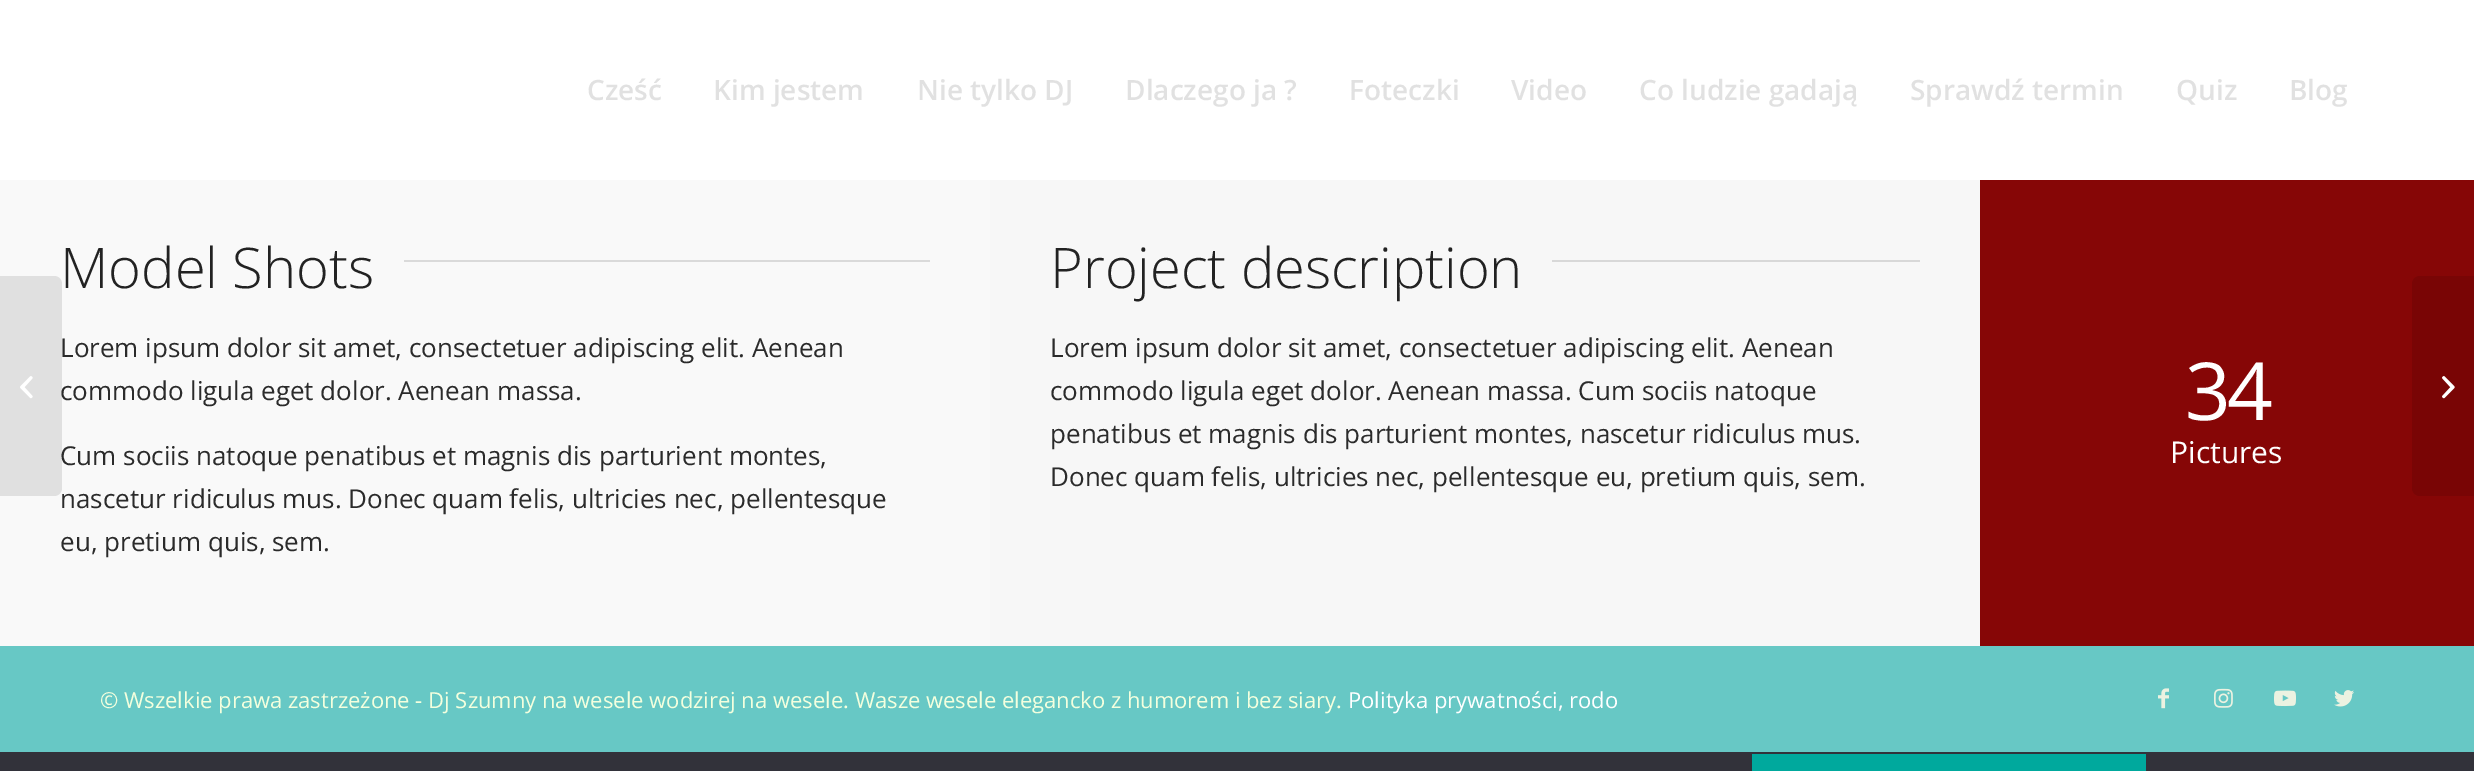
%!PS
<< /PageSize [2474 771] /PageUsesTransparency true >> setpagedevice
/m/moveto load def
/l/rlineto load def
/c/rcurveto load def
/z/closepath load def
/f/fill load def
/C { dup -16 bitshift 255 div exch dup -8 bitshift 255 and 255 div exch 255 and 255 div setrgbcolor } def
/F { [ exch dup neg 0 0 3 -1 roll 0 0 ] selectfont } def
/T { moveto show } def
/R { rectfill } def
/A { dup .setfillconstantalpha .setstrokeconstantalpha } def
/I { 5 dict begin { /h /w /y /x /name } { exch def } forall
  gsave x y translate w h scale
  w h 8 [w 0 0 h 0 0] name (r) file false 3 colorimage grestore end } def
0 .pushpdf14devicefilter
0 771 translate 1 -1 scale
4 setmiterlimit
16#32323A C
0 0 2474 771 R
16#FFFFFF C
0 0 2474 180 R
/OpenSans-SemiBold 28 F
16#E1E1E1 C
(Cześć) 587 100 T
(Kim jestem) 713 100 T
(Nie tylko DJ) 917 100 T
(Dlaczego ja ?) 1125 100 T
(Foteczki) 1349 100 T
(Video) 1511 100 T
(Co ludzie gadają) 1639 100 T
(Sprawdź termin) 1910 100 T
(Quiz) 2176 100 T
(Blog) 2289 100 T
16#F9F9F9 C
0 180 990 466 R
0.1 A
16#000000 C
0 276 m 54 0 l 4.5 0 8 3.5 8 8 c 0 204 l 0 4.5 -3.5 8 -8 8 c -54 0 l z f
1 A
(1.rgb) 20 376 13 23 I
/OpenSans-Light 56 F
16#222222 C
(Model Shots) 60 288 T
16#DADADA C
404 260 526 2 R
/OpenSans-Regular 26 F
16#2B2B2B C
(Lorem ipsum dolor sit amet, consectetuer adipiscing elit. Aenean) 60 357 T
(commodo ligula eget dolor. Aenean massa.) 60 400 T
(Cum sociis natoque penatibus et magnis dis parturient montes,) 60 465 T
(nascetur ridiculus mus. Donec quam felis, ultricies nec, pellentesque) 60 508 T
(eu, pretium quis, sem.) 60 551 T
16#F7F7F7 C
990 180 990 466 R
/OpenSans-Light 56 F
16#222222 C
(Project description) 1050 288 T
16#D8D8D8 C
1552 260 368 2 R
/OpenSans-Regular 26 F
16#2B2B2B C
(Lorem ipsum dolor sit amet, consectetuer adipiscing elit. Aenean) 1050 357 T
(commodo ligula eget dolor. Aenean massa. Cum sociis natoque) 1050 400 T
(penatibus et magnis dis parturient montes, nascetur ridiculus mus.) 1050 443 T
(Donec quam felis, ultricies nec, pellentesque eu, pretium quis, sem.) 1050 486 T
16#860606 C
1980 180 494 466 R
/OpenSans-Regular 80 F
16#FFFFFF C
2185 420 m -4 0 (34) ashow
/OpenSans-Regular 30 F
(Pictures) 2170 463 T
16#67C8C5 C
0 646 2474 106 R
/OpenSans-Regular 22 F
16#F3FFDE C
(© Wszelkie prawa zastrzeżone - Dj Szumny na wesele wodzirej na wesele. Wasze wesele elegancko z humorem i bez siary.) 100 708 T
16#FFFFFF C
(Polityka prywatności, rodo) 1348 708 T
(2.rgb) 2158 688 11 21 I
(3.rgb) 2214 688 19 20 I
(4.rgb) 2274 690 22 17 I
(5.rgb) 2334 690 20 17 I
16#790505 C
2420 276 m 54 0 l 0 220 l -54 0 l -4.5 0 -8 -3.5 -8 -8 c 0 -204 l 0 -4.5 3.5 -8 8 -8 c z f
(6.rgb) 2442 376 13 23 I
16#00A99D C
1752 754 394 17 R
.poppdf14devicefilter showpage
